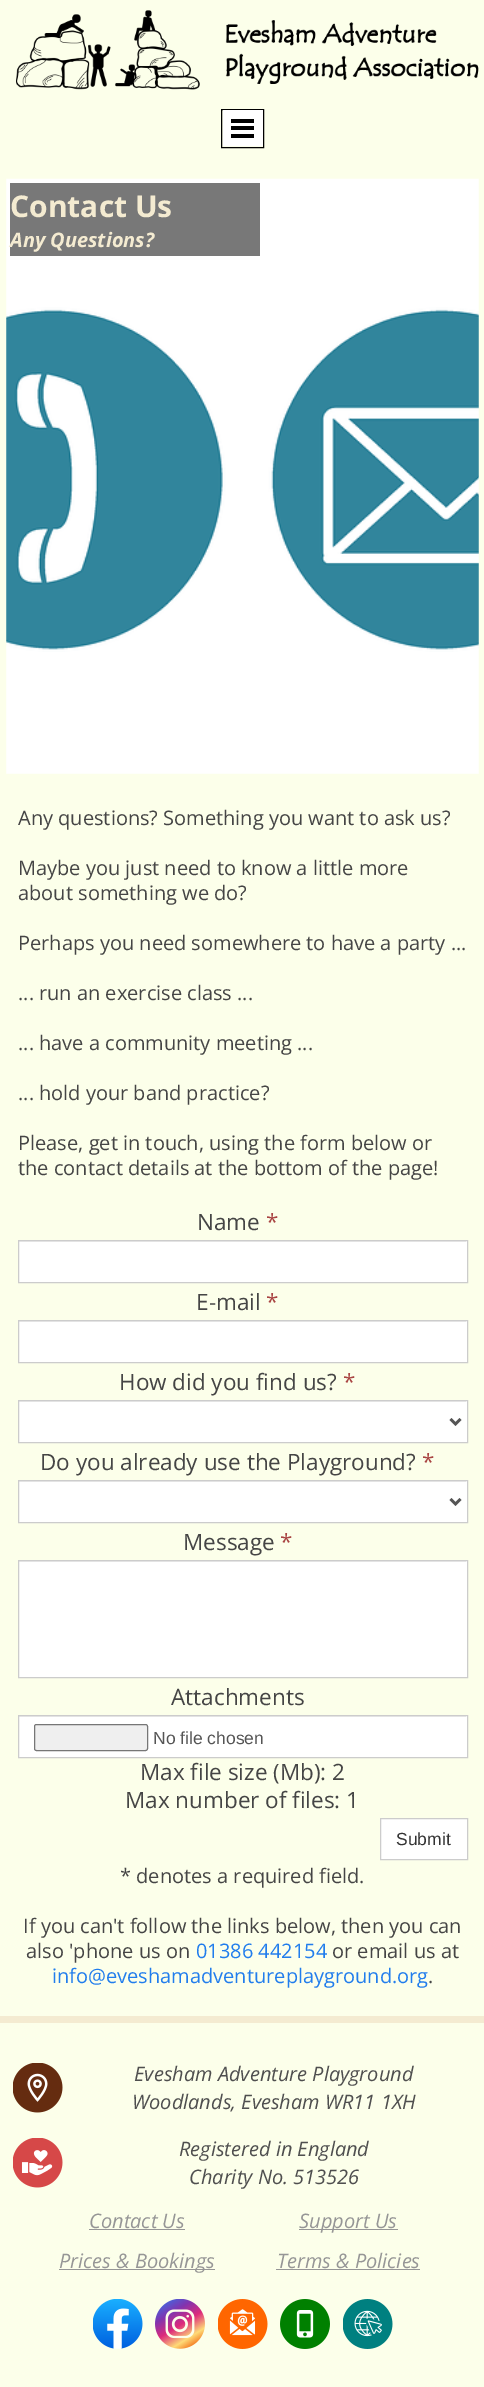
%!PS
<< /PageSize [484 2387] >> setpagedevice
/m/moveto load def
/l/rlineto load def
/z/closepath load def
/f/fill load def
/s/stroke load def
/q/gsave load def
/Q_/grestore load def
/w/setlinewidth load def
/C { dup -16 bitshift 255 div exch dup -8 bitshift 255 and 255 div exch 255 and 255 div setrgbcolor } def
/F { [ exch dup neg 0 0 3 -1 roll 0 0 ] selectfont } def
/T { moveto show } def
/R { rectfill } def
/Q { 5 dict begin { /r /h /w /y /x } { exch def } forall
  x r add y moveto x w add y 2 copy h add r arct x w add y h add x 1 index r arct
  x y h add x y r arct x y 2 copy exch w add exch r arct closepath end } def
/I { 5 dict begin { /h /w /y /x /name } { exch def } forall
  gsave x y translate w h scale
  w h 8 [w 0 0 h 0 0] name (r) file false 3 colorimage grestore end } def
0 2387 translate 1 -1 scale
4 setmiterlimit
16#FCFFEA C
0 0 484 2387 R
(1.rgb) 16 10 463 80 I
16#000000 C
221.5 109.5 42 38 rectstroke
16#FFFFFF C
223 110 40 36 R
16#000000 C
231 119 23 4 R
231 126 23 4 R
231 134 23 4 R
(2.rgb) 6 178 473 596 I
16#787878 C
10 183 250 73 R
/OpenSans-Bold 30 F
16#F4EBD1 C
(Contact Us) 10 217 T
/OpenSans-BoldItalic 20 F
(Any Questions?) 10 247 T
/OpenSans-Regular 20 F
16#454545 C
(Any questions? Something you want to ask us?) 18 825 T
(Maybe you just need to know a little more) 18 875 T
(about something we do?) 18 900 T
(Perhaps you need somewhere to have a party ...) 18 950 T
(... run an exercise class ...) 18 1000 T
(... have a community meeting ...) 18 1050 T
(... hold your band practice?) 18 1100 T
(Please, get in touch, using the form below or) 18 1150 T
(the contact details at the bottom of the page!) 18 1175 T
/OpenSans-Regular 22.5 F
(Name) 197 1230 T
16#A94442 C
(*) 266 1230 T
16#FFFFFF C
19 1241 448 41 R
16#ECECEC C
19 1241 447 1 R
16#CCCCCC C
18.5 1240.5 449 42 rectstroke
16#454545 C
(E-mail) 196 1310 T
16#A94442 C
(*) 266 1310 T
16#FFFFFF C
19 1321 448 41 R
16#ECECEC C
19 1321 447 1 R
16#CCCCCC C
18.5 1320.5 449 42 rectstroke
16#454545 C
(How did you find us?) 119 1390 T
16#A94442 C
(*) 343 1390 T
16#FFFFFF C
19 1401 448 41 R
16#ECECEC C
19 1401 447 1 R
16#CCCCCC C
18.5 1400.5 449 42 rectstroke
16#555555 C
2.5 w
450.5 1419 m 5 5 l 5 -5 l s
16#454545 C
(Do you already use the Playground?) 40 1470 T
16#A94442 C
(*) 422 1470 T
16#FFFFFF C
19 1481 448 41 R
16#ECECEC C
19 1481 447 1 R
16#CCCCCC C
1 w
18.5 1480.5 449 42 rectstroke
16#555555 C
2.5 w
450.5 1499 m 5 5 l 5 -5 l s
16#454545 C
(Message) 183 1550 T
16#A94442 C
(*) 280 1550 T
16#FFFFFF C
19 1561 448 116 R
16#ECECEC C
19 1561 447 1 R
16#CCCCCC C
1 w
18.5 1560.5 449 117 rectstroke
16#454545 C
(Attachments) 171 1705 T
16#FFFFFF C
19 1716 448 41 R
16#ECECEC C
19 1716 447 1 R
16#CCCCCC C
18.5 1715.5 449 42 rectstroke
16#EFEFEF C
34.5 1724.5 113 26 2 Q q f Q_
16#767676 C
s
/LiberationSans-Regular 17.5 F
16#555555 C
(No file chosen) 153 1744 T
/OpenSans-Regular 22.5 F
16#454545 C
(Max file size \(Mb\): 2) 140 1780 T
(Max number of files: 1) 125 1808 T
16#FFFFFF C
380.5 1818.5 m 87 0 l 0 41 l -87 0 l z q f Q_
16#CCCCCC C
s
/LiberationSans-Regular 17.5 F
16#333333 C
(Submit) 396 1845 T
/OpenSans-Regular 20 F
16#454545 C
(* denotes a required field.) 120 1883 T
(If you can't follow the links below, then you can) 23 1933 T
(also 'phone us on) 26 1958 T
16#217DED C
(01386 442154) 196 1958 T
16#454545 C
(or email us at) 332 1958 T
16#217DED C
(info@eveshamadventureplayground.org) 52 1983 T
16#454545 C
(.) 428 1983 T
16#F4EBD1 C
0 2016 484 7 R
(3.rgb) 13 2063 50 50 I
/OpenSans-Italic 20 F
16#4F4F4F C
(Evesham Adventure Playground) 134 2081 T
(Woodlands, Evesham WR11 1XH) 132 2109 T
(4.rgb) 13 2138 50 50 I
(Registered in England) 179 2156 T
(Charity No. 513526) 189 2184 T
16#969696 C
(Contact Us) 89 2228 T
89 2229 96 1 R
299 2229 99 1 R
(Support Us) 299 2228 T
59 2269 156 1 R
(Prices & Bookings) 59 2268 T
(Terms & Policies) 277 2268 T
276 2269 144 1 R
(5.rgb) 93 2299 50 50 I
(6.rgb) 155 2299 50 50 I
(7.rgb) 218 2299 50 50 I
(8.rgb) 280 2299 50 50 I
(9.rgb) 343 2299 50 50 I
showpage
